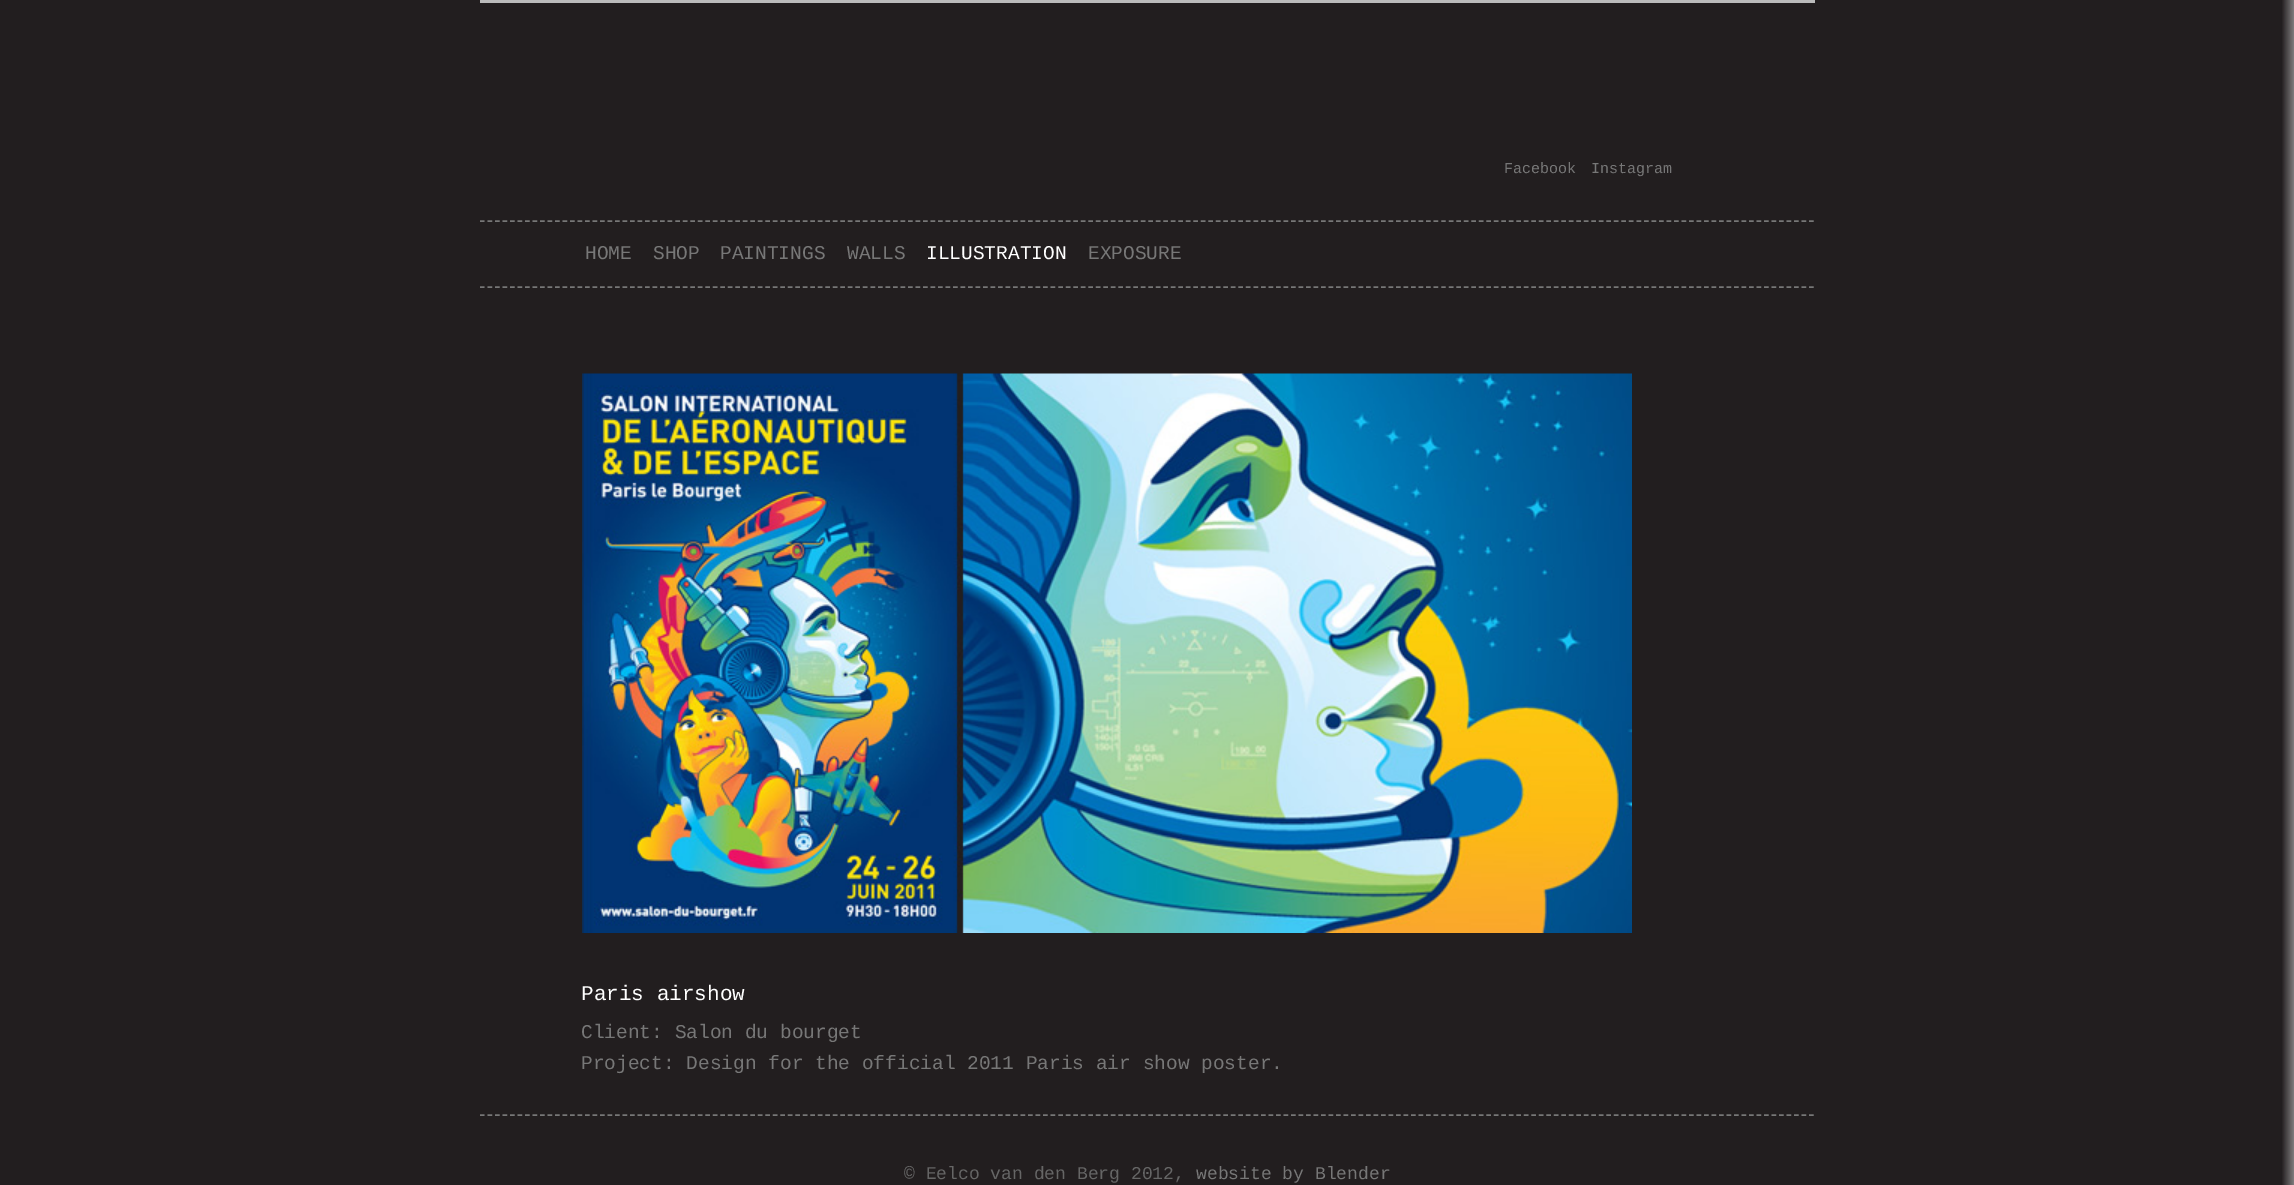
%!PS
<< /PageSize [2294 1185] >> setpagedevice
/m/moveto load def
/l/rlineto load def
/s/stroke load def
/w/setlinewidth load def
/C { dup -16 bitshift 255 div exch dup -8 bitshift 255 and 255 div exch 255 and 255 div setrgbcolor } def
/F { [ exch dup neg 0 0 3 -1 roll 0 0 ] selectfont } def
/T { moveto show } def
/R { rectfill } def
/I { 5 dict begin { /h /w /y /x /name } { exch def } forall
  gsave x y translate w h scale
  w h 8 [w 0 0 h 0 0] name (r) file false 3 colorimage grestore end } def
0 1185 translate 1 -1 scale
4 setmiterlimit
16#E2E2E2 C
0 0 2294 1185 R
(1.rgb) 0 0 2294 1185 I
16#BBBBBB C
480 0 1335 3 R
/LiberationMono-Regular 15 F
16#777777 C
(Facebook) 1504 173 T
(Instagram) 1591 173 T
1.5 w
[4.5 3.01] 0 setdash
480 221 m 1335 0 l s
480 287 m 1335 0 l s
/LiberationMono-Regular 19.5 F
(HOME) 585 259 T
(SHOP) 653 259 T
(PAINTINGS) 720 259 T
(WALLS) 847 259 T
16#FFFFFF C
(ILLUSTRATION) 926 259 T
16#777777 C
(EXPOSURE) 1088 259 T
(2.rgb) 582 373 1050 560 I
/LiberationMono-Regular 21 F
16#FFFFFF C
(Paris airshow) 581 1000 T
/LiberationMono-Regular 19.5 F
16#777777 C
(Client: Salon du bourget) 581 1038 T
(Project: Design for the official 2011 Paris air show poster.) 581 1069 T
480 1115 m 1335 0 l s
/LiberationMono-Regular 18 F
16#666666 C
(© Eelco van den Berg 2012,) 904 1179 T
16#777777 C
(website by Blender) 1196 1179 T
showpage
